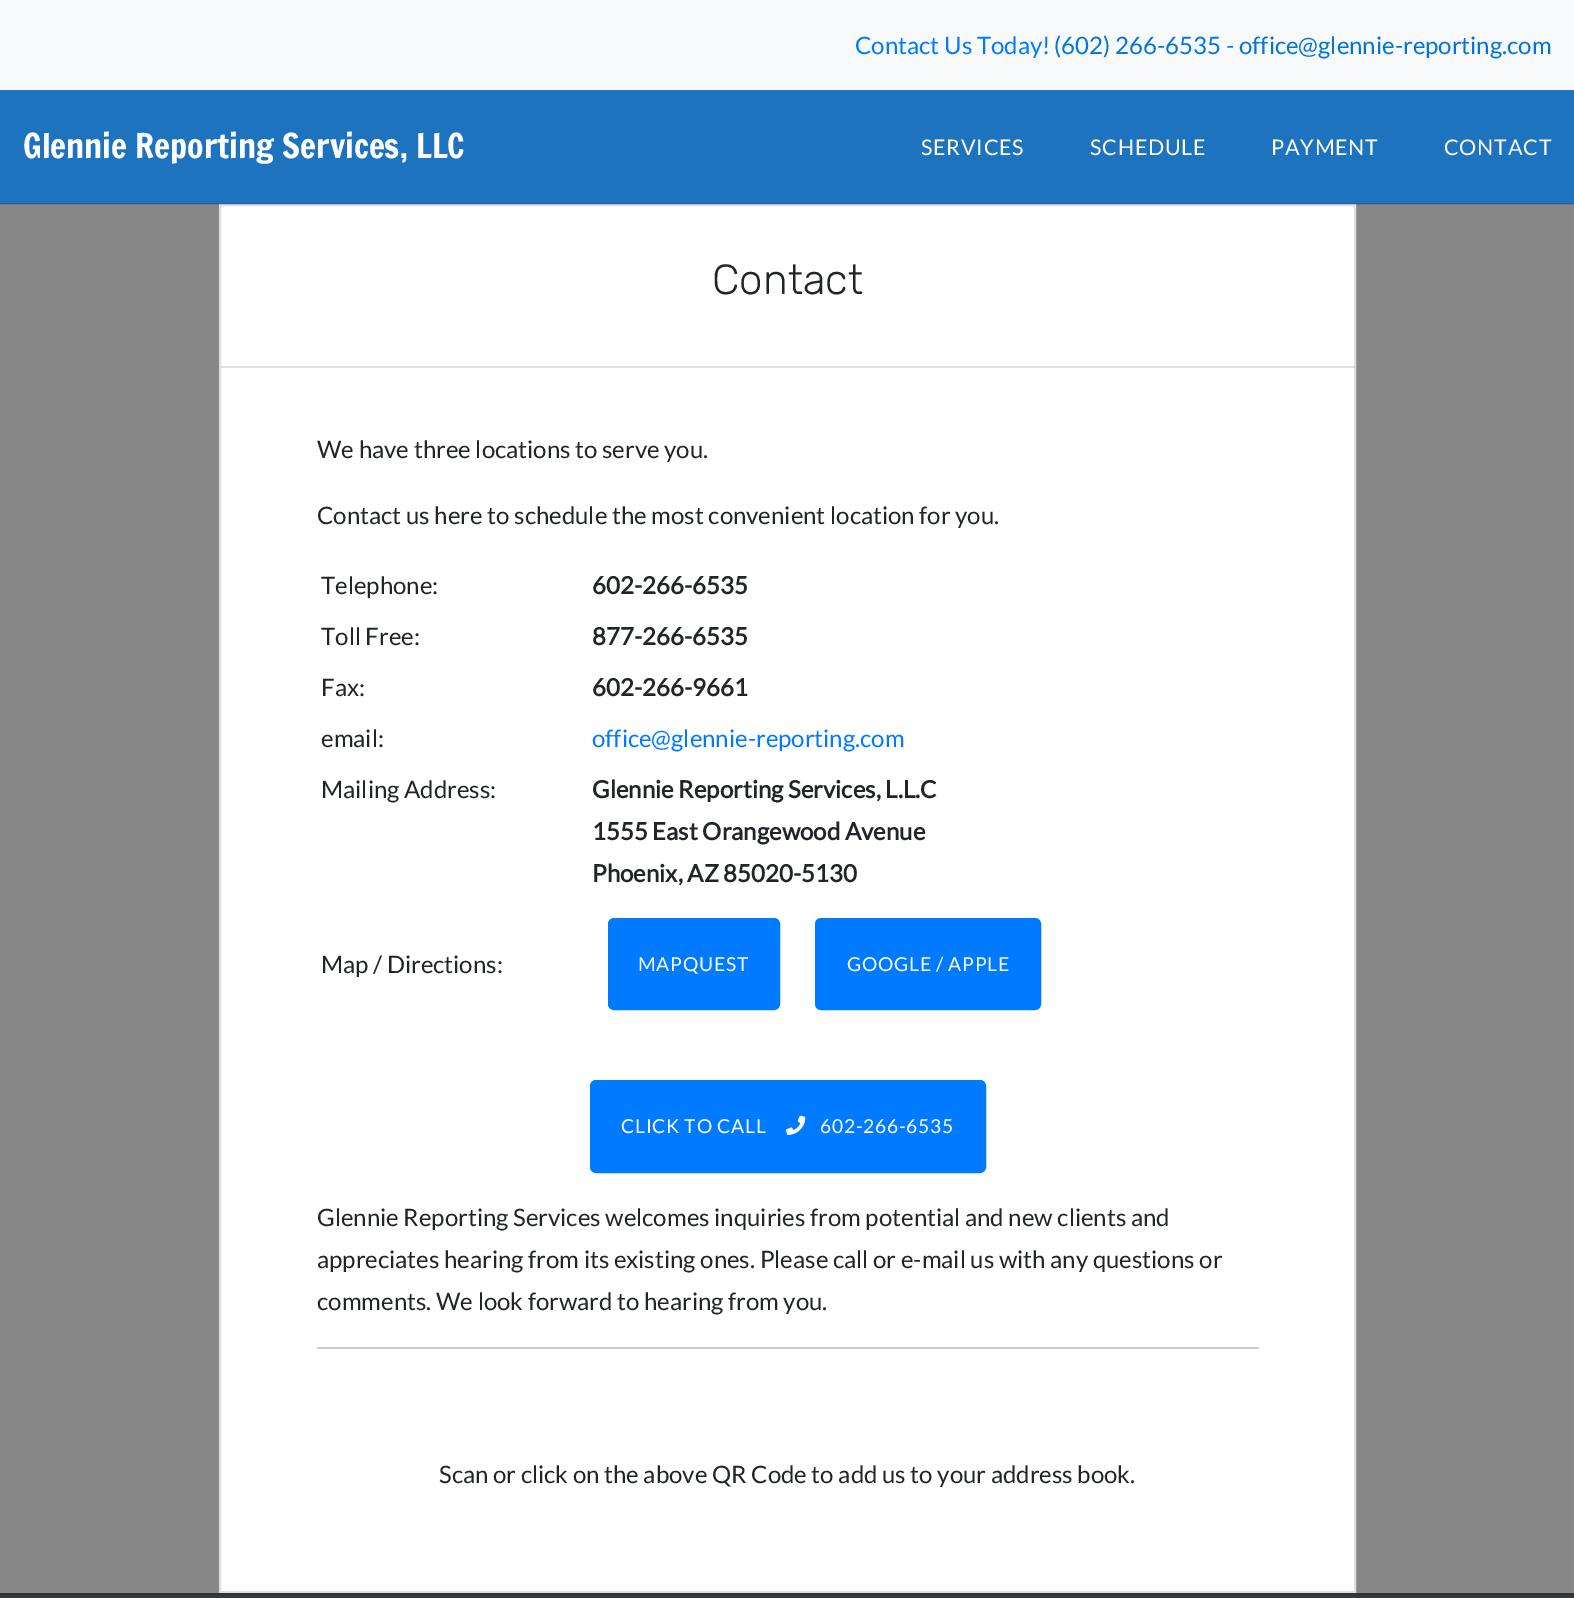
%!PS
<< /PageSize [1574 1598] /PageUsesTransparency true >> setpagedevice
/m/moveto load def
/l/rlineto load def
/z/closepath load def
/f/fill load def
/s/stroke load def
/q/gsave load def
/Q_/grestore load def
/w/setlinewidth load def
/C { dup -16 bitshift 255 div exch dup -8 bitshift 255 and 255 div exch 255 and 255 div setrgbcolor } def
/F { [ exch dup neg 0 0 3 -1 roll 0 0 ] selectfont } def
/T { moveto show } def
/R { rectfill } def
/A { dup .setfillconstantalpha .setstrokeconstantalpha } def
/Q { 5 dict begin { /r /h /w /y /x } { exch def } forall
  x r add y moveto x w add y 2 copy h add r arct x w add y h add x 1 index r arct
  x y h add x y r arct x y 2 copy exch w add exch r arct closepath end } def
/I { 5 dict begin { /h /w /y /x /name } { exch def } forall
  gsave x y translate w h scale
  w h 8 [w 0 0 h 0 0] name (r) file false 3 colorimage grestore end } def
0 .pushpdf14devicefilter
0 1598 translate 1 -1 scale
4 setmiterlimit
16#878787 C
0 0 1574 1598 R
16#F8F9FA C
0 0 1574 90 R
/Lato-Regular 24 F
16#007BFF C
(Contact Us Today!) 855 54 T
16#0275D8 C
(\(602\) 266-6535) 1054 54 T
16#007BFF C
(-) 1226 54 T
16#0275D8 C
(office@glennie-reporting.com) 1239 54 T
16#1E73BE C
0 90 1574 114 R
16#FFFFFF C
220 205 m 1135 0 l 0 1387 l -1135 0 l z q f Q_
16#DFDFDF C
2 w
s
0.12 A
16#000000 C
0 203 1574 2 R
/FrancoisOne-Regular 33.6 F
1 A
16#FFFFFF C
(Glennie Reporting Services, LLC) 23 158 T
/Lato-Regular 21.5 F
921 155 m .75 0 (SERVICES) ashow
1090 155 m .75 0 (SCHEDULE) ashow
1271 155 m .75 0 (PAYMENT) ashow
16#F9F9F9 C
1444 155 m .75 0 (CONTACT) ashow
0.12 A
16#000000 C
221 366 1134 2 R
/Rubik-Light 42 F
1 A
16#212529 C
(Contact) 712 294 T
/Lato-Regular 24 F
(We have three locations to serve you.) 317 458 T
(Contact us here to schedule the most convenient location for you.) 317 524 T
(Telephone:) 321 594 T
/Lato-Bold 24 F
(602-266-6535) 592 594 T
/Lato-Regular 24 F
(Toll Free:) 321 645 T
/Lato-Bold 24 F
(877-266-6535) 592 645 T
/Lato-Regular 24 F
(Fax:) 321 696 T
/Lato-Bold 24 F
(602-266-9661) 592 696 T
/Lato-Regular 24 F
(email:) 321 747 T
16#007BFF C
(office@glennie-reporting.com) 592 747 T
16#212529 C
(Mailing Address:) 321 798 T
/Lato-Bold 24 F
(Glennie Reporting Services, L.L.C) 592 798 T
(1555 East Orangewood Avenue) 592 840 T
(Phoenix, AZ 85020-5130) 592 882 T
/Lato-Regular 24 F
(Map / Directions:) 321 973 T
16#007BFF C
609 919 170 90 5 Q q f Q_
s
/Lato-Regular 19.25 F
16#FFFFFF C
638 971 m .75 0 (MAPQUEST) ashow
16#007BFF C
816 919 224 90 5 Q q f Q_
s
16#FFFFFF C
847 971 m .75 0 (GOOGLE / APPLE) ashow
16#007BFF C
591 1081 394 91 5 Q q f Q_
s
16#FFFFFF C
621 1133 m .75 0 (CLICK TO CALL) ashow
(1.rgb) 786 1115 20 20 I
820 1133 m .75 0 (602-266-6535) ashow
/Lato-Regular 24 F
16#212529 C
(Glennie Reporting Services welcomes inquiries from potential and new clients and) 317 1226 T
(appreciates hearing from its existing ones. Please call or e-mail us with any questions or) 317 1268 T
(comments. We look forward to hearing from you.) 317 1310 T
16#CCCCCC C
317 1347 942 2 R
16#212529 C
(Scan or click on the above QR Code to add us to your address book.) 439 1483 T
16#343A40 C
0 1595 1574 3 R
16#2E3338 C
0 1593 1574 2 R
.poppdf14devicefilter showpage
